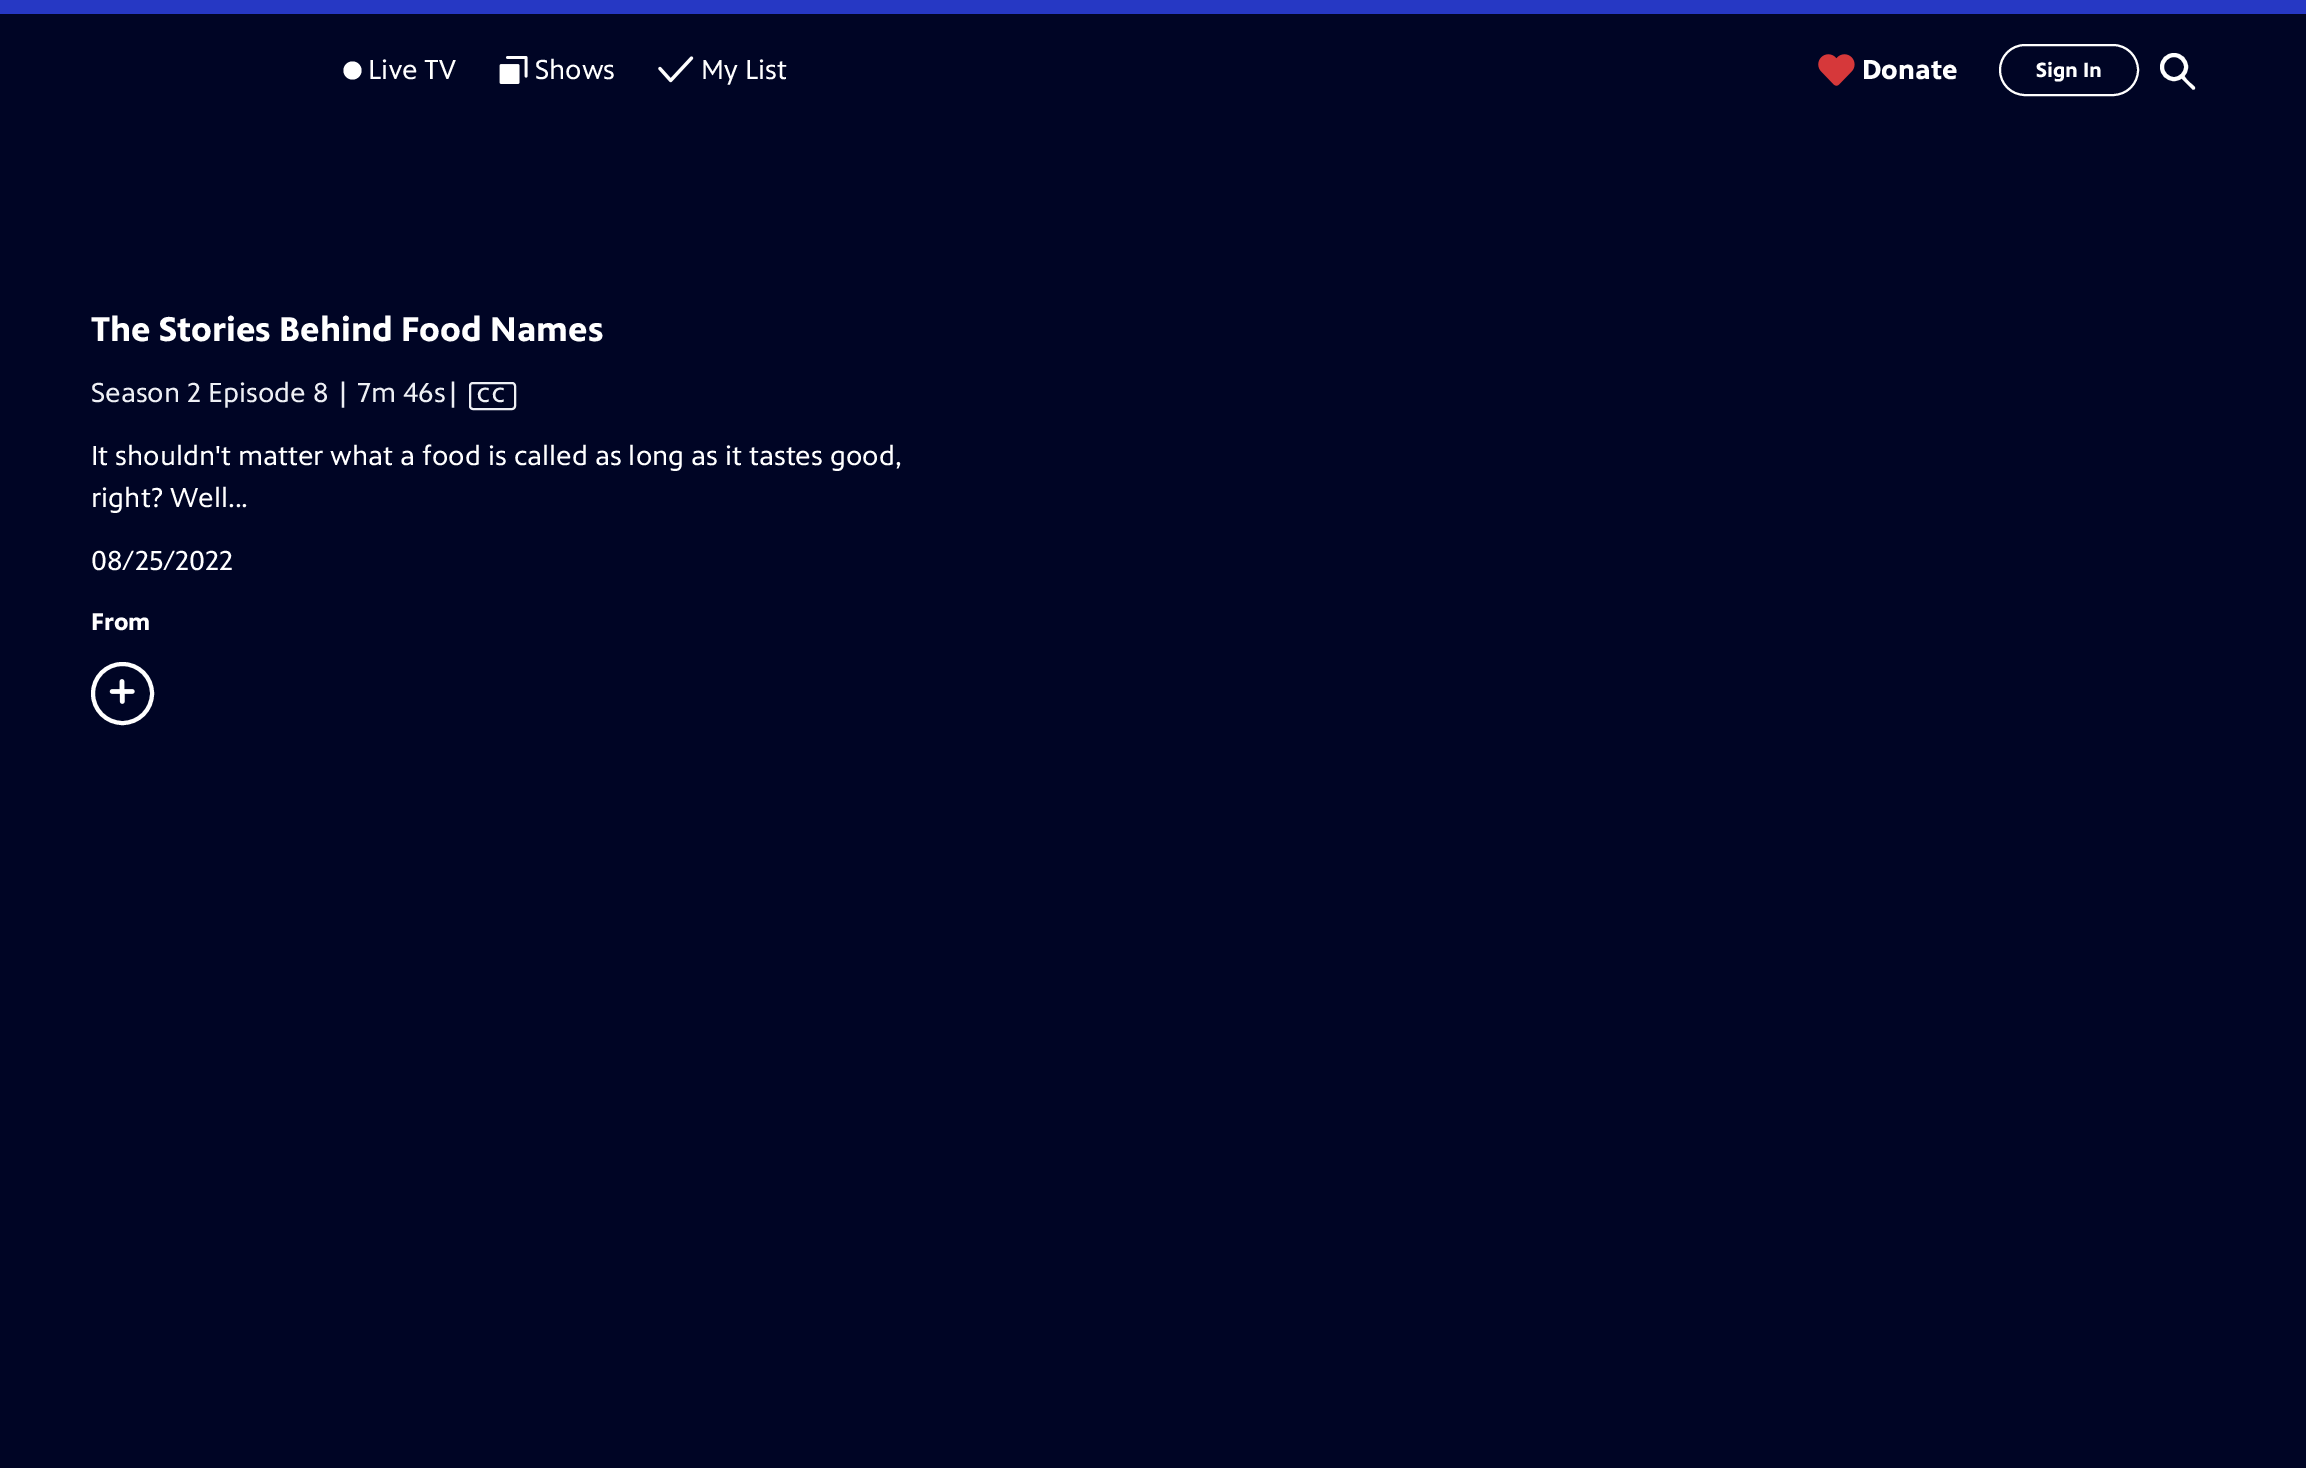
%!PS
<< /PageSize [2306 1468] >> setpagedevice
/m/moveto load def
/l/rlineto load def
/c/rcurveto load def
/z/closepath load def
/f/fill load def
/s/stroke load def
/w/setlinewidth load def
/C { dup -16 bitshift 255 div exch dup -8 bitshift 255 and 255 div exch 255 and 255 div setrgbcolor } def
/F { [ exch dup neg 0 0 3 -1 roll 0 0 ] selectfont } def
/T { moveto show } def
/R { rectfill } def
/O { newpath 0 360 arc closepath } def
/Q { 5 dict begin { /r /h /w /y /x } { exch def } forall
  x r add y moveto x w add y 2 copy h add r arct x w add y h add x 1 index r arct
  x y h add x y r arct x y 2 copy exch w add exch r arct closepath end } def
/I { 5 dict begin { /h /w /y /x /name } { exch def } forall
  gsave x y translate w h scale
  w h 8 [w 0 0 h 0 0] name (r) file false 3 colorimage grestore end } def
0 1468 translate 1 -1 scale
4 setmiterlimit
16#000525 C
0 0 2306 1468 R
16#2638C4 C
0 0 2306 14 R
16#FFFFFF C
352.5 70.5 9 O f
/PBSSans-Regular 28 F
(Live TV) 368 79 T
(1.rgb) 499 56 29 28 I
(Shows) 535 79 T
(2.rgb) 658 56 36 27 I
(My List) 701 79 T
(3.rgb) 1818 54 37 32 I
/PBSSans-Bold 28 F
(Donate) 1862 79 T
2 w
2000 45 138 50 25 Q s
/PBSSans-Bold 21 F
(Sign In) 2036 77 T
4 w
2174 67 12 O s
2192 89 m -12 -12 l 0 -1.5 l 2 -3 6 2.5 6.5 3.5 c 4 4 l 1 1 4 3 4.5 4.5 c .5 2 -2 3 -3 1.5 c z f
/PBSSans-Bold 35 F
(The Stories Behind Food Names) 91 341 T
/PBSSans-Regular 28 F
16#EEF0F5 C
(Season 2 Episode 8 | 7m 46s|) 91 402 T
2 w
470 383 45 26 3 Q s
/PBSSans-Medium 21 F
477 402 m 2 0 (CC) ashow
/PBSSans-Regular 28 F
16#FFFFFF C
(It shouldn't matter what a food is called as long as it tastes good,) 91 465 T
(right? Well...) 91 507 T
(08/25/2022) 91 570 T
/PBSSans-Bold 24.5 F
(From) 91 630 T
4 w
122.5 693.5 29.5 O s
(4.rgb) 109 679 26 25 I
showpage
